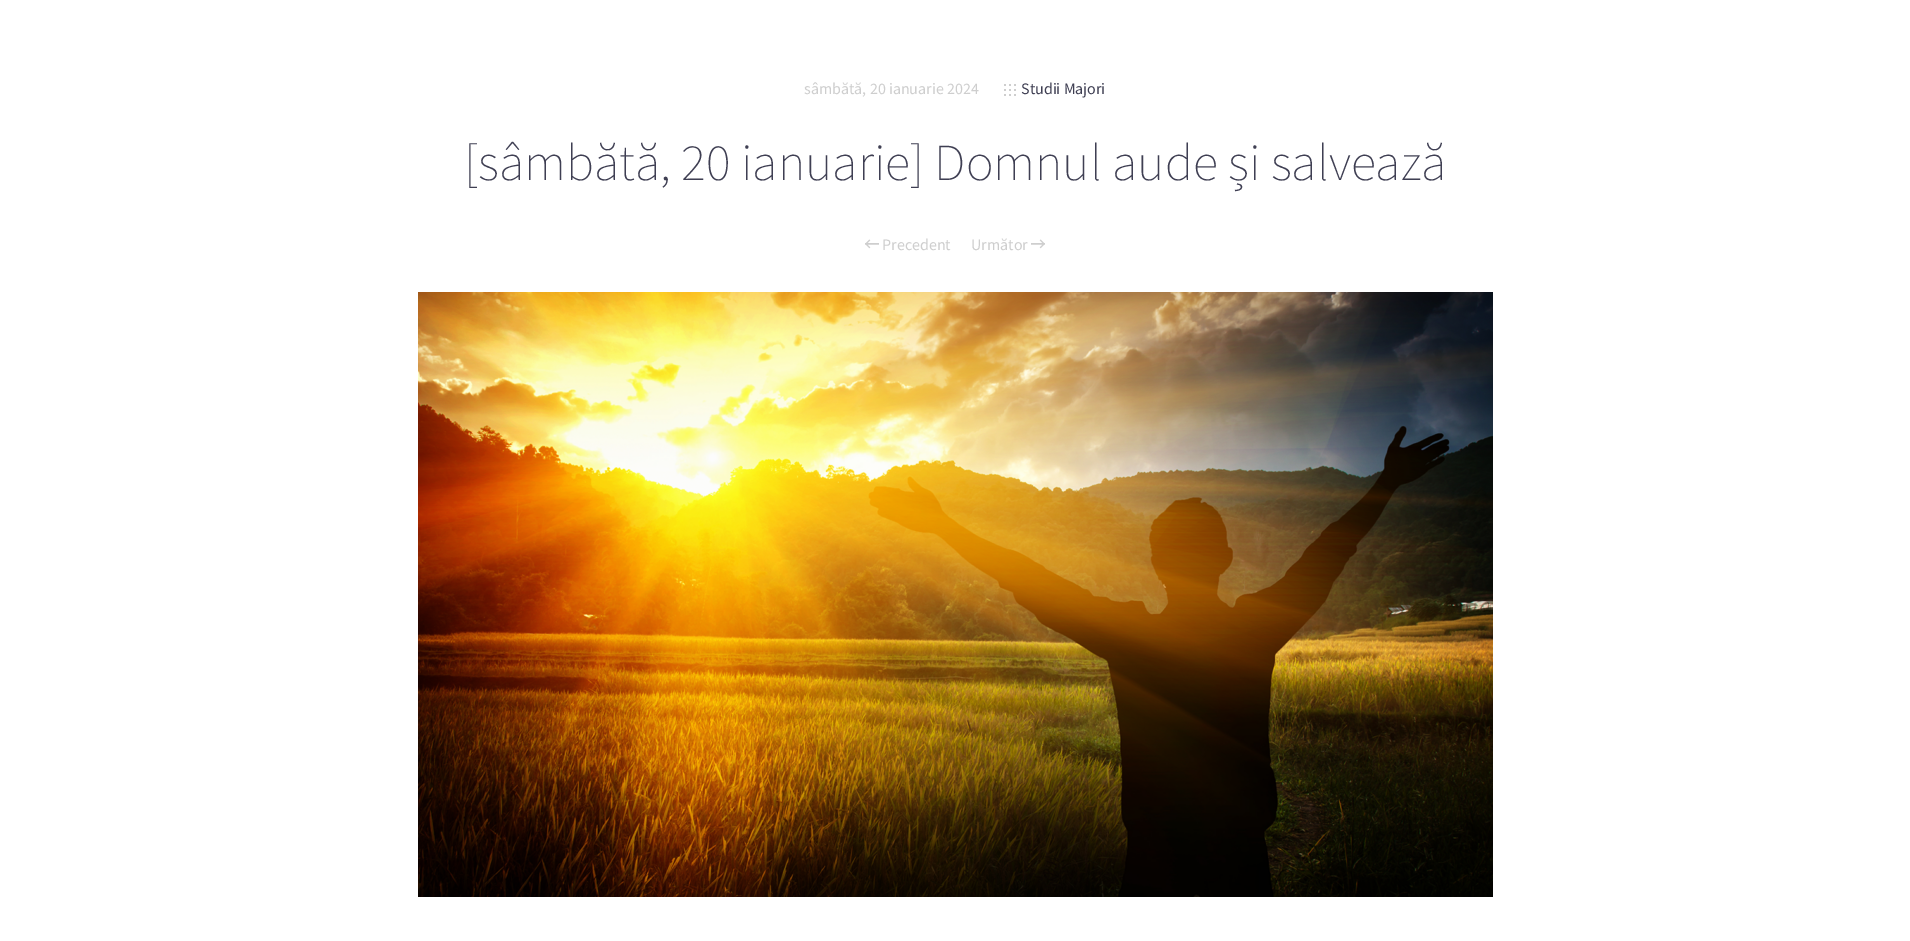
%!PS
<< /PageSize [1910 941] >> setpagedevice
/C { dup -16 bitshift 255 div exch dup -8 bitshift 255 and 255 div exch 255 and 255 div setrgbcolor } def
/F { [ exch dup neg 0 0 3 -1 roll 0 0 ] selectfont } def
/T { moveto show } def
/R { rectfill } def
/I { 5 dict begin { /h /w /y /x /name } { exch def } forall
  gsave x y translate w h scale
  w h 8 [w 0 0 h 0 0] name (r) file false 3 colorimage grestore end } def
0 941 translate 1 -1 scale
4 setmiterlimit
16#FFFFFF C
0 0 1910 941 R
/SourceSansPro-Regular 16 F
16#CECECE C
(sâmbătă, 20 ianuarie 2024) 804 94 T
(1.rgb) 1004 84 12 12 I
16#3F3F53 C
(Studii Majori) 1021 94 T
/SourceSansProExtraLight-ExtraLight 52 F
([sâmbătă, 20 ianuarie] Domnul aude și salvează) 464 180 T
(2.rgb) 865 239 14 10 I
/SourceSansPro-Regular 16 F
16#CECECE C
(Precedent) 882 250 T
(Următor) 971 250 T
(3.rgb) 1031 239 14 10 I
(4.rgb) 418 292 1075 605 I
showpage
